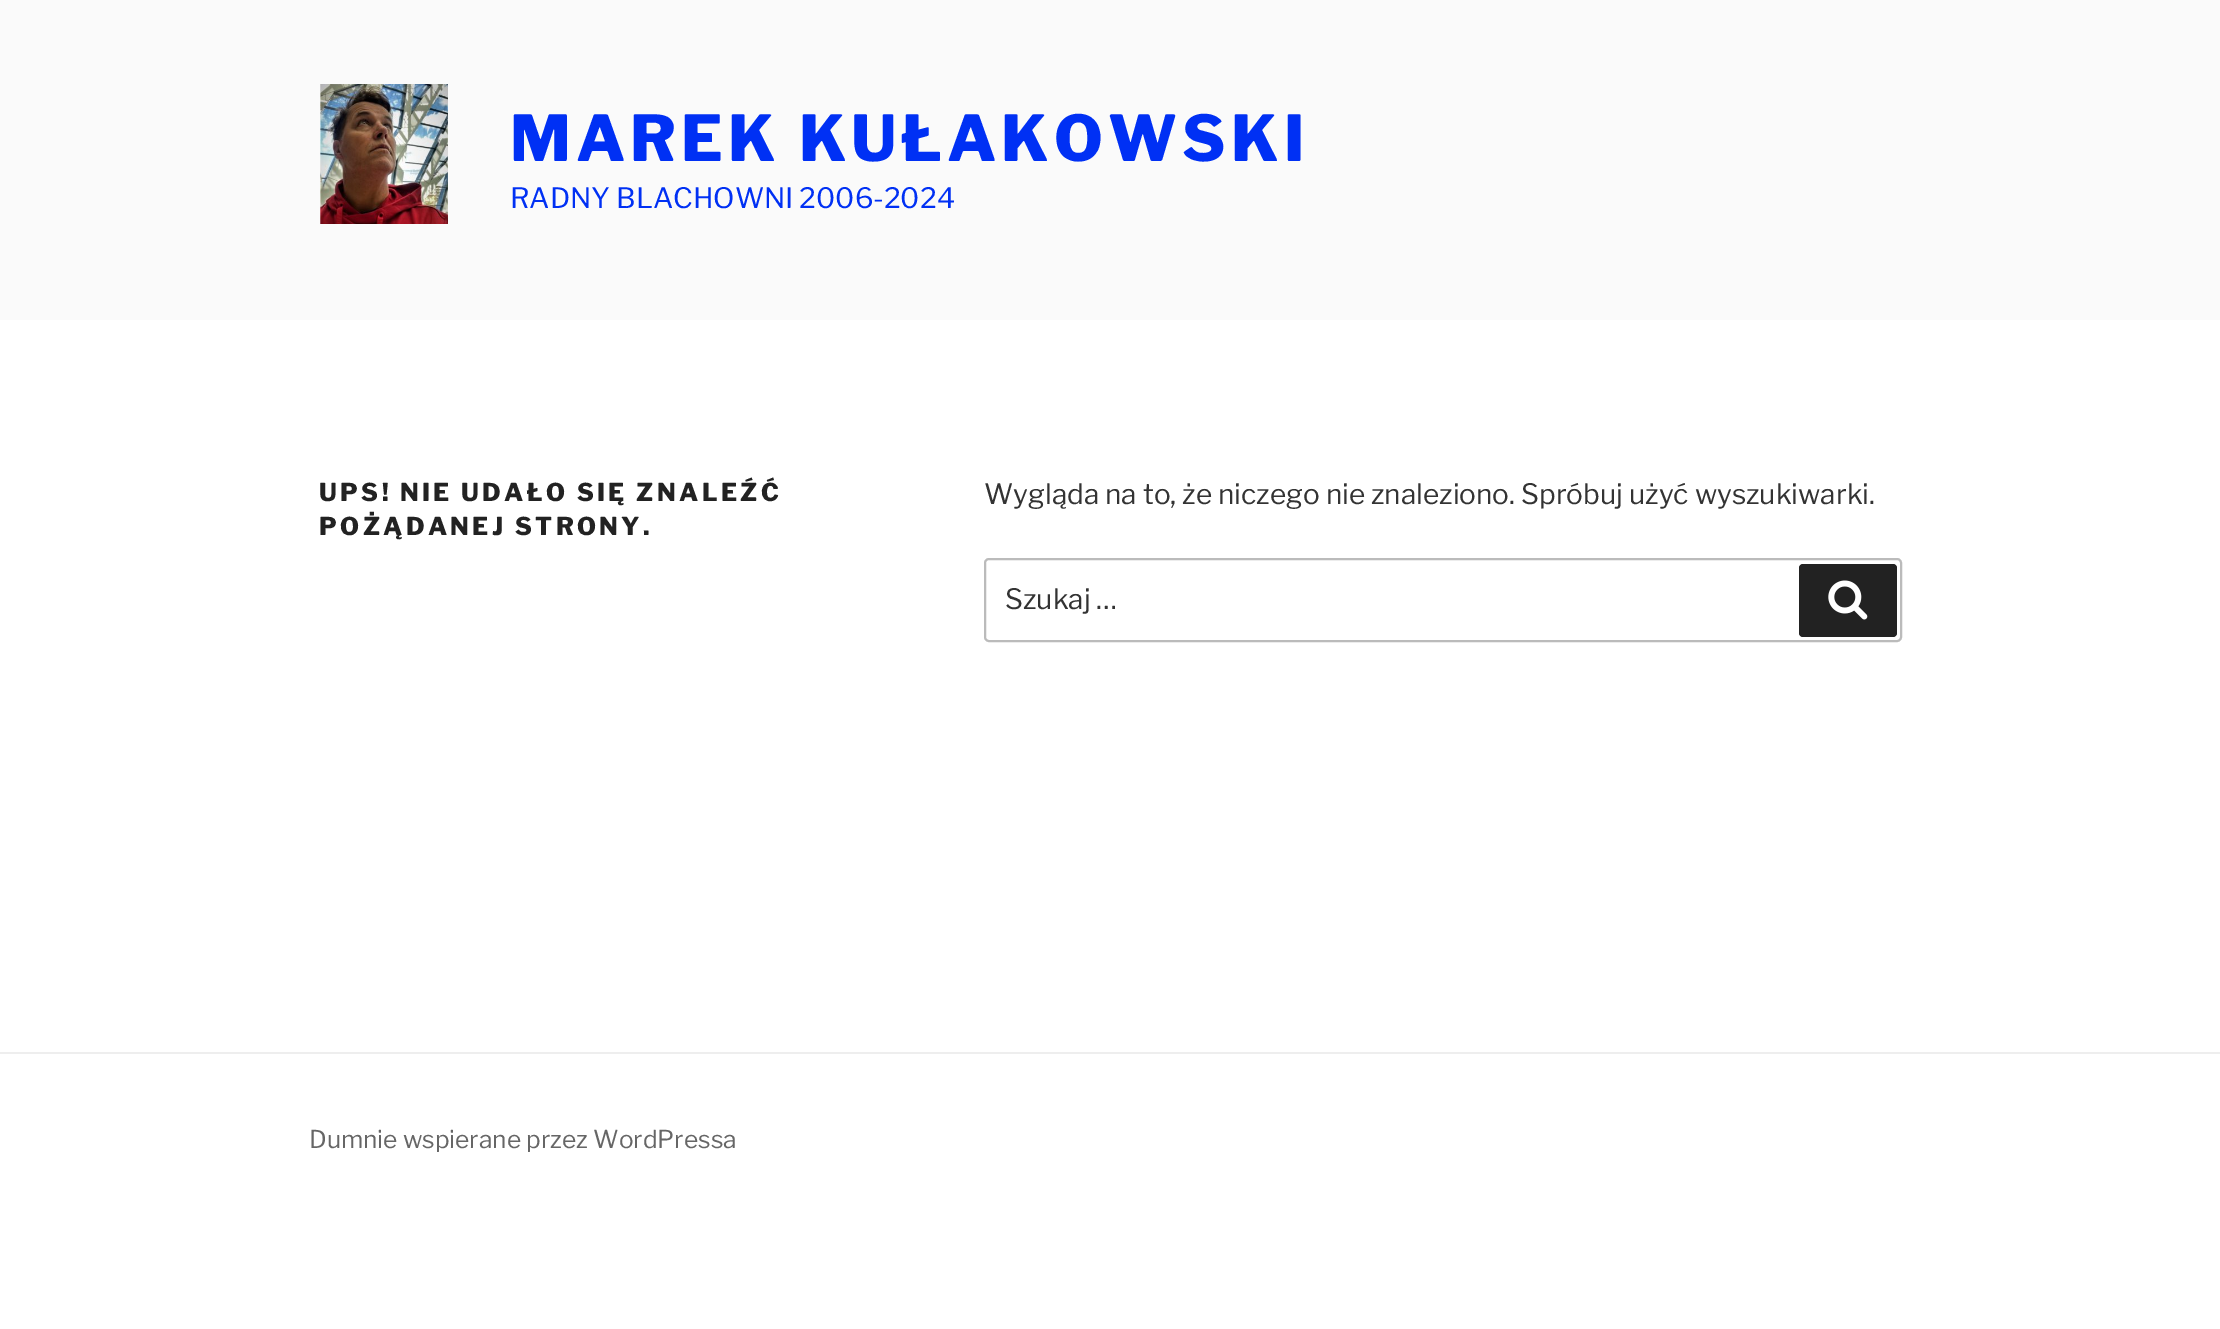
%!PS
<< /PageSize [2220 1329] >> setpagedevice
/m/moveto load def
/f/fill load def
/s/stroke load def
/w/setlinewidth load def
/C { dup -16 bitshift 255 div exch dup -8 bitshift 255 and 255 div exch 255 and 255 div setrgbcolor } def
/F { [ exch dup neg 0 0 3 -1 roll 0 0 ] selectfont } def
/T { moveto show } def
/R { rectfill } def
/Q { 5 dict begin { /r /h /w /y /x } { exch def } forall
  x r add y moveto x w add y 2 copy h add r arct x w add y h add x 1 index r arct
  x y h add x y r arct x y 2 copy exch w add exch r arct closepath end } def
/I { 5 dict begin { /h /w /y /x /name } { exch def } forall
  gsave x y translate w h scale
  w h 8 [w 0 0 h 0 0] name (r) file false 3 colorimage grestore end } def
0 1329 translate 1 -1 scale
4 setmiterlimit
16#FFFFFF C
0 0 2220 1329 R
16#FAFAFA C
0 0 2220 320 R
(1.rgb) 320 84 128 140 I
/LibreFranklin-ExtraBold 63 F
16#0030F4 C
510 161 m 5 0 (MAREK KUŁAKOWSKI) ashow
/LibreFranklin-Regular 28 F
(RADNY BLACHOWNI 2006-2024) 510 208 T
/LibreFranklin-ExtraBold 24.5 F
16#222222 C
319 501 m 3.4 0 (UPS! NIE UDAŁO SIĘ ZNALEŹĆ) ashow
319 535 m 3.4 0 (POŻĄDANEJ STRONY.) ashow
/LibreFranklin-Regular 28 F
16#333333 C
(Wygląda na to, że niczego nie znaleziono. Spróbuj użyć wyszukiwarki.) 984 504 T
16#BBBBBB C
2 w
985 559 916 82 4 Q s
16#333333 C
(Szukaj …) 1005 609 T
16#222222 C
1799 564 98 73 4 Q f
(2.rgb) 1828 580 40 40 I
16#EEEEEE C
0 1052 2220 2 R
/LibreFranklin-Regular 24.5 F
16#666666 C
(Dumnie wspierane przez WordPressa) 309 1148 T
showpage
